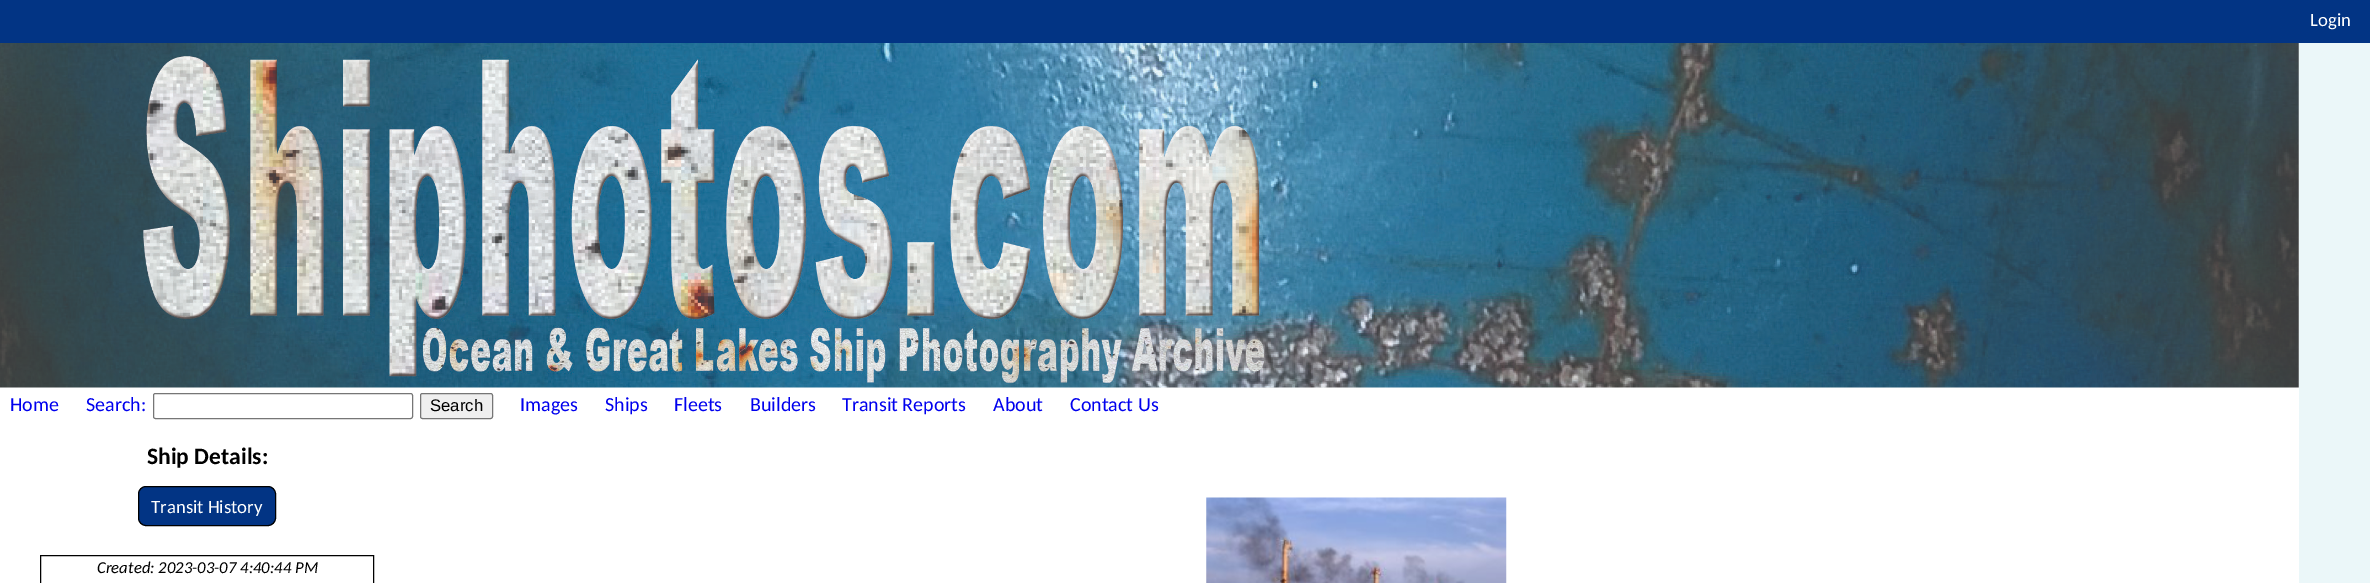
%!PS
<< /PageSize [2370 583] >> setpagedevice
/f/fill load def
/s/stroke load def
/q/gsave load def
/Q_/grestore load def
/C { dup -16 bitshift 255 div exch dup -8 bitshift 255 and 255 div exch 255 and 255 div setrgbcolor } def
/F { [ exch dup neg 0 0 3 -1 roll 0 0 ] selectfont } def
/T { moveto show } def
/R { rectfill } def
/Q { 5 dict begin { /r /h /w /y /x } { exch def } forall
  x r add y moveto x w add y 2 copy h add r arct x w add y h add x 1 index r arct
  x y h add x y r arct x y 2 copy exch w add exch r arct closepath end } def
/I { 5 dict begin { /h /w /y /x /name } { exch def } forall
  gsave x y translate w h scale
  w h 8 [w 0 0 h 0 0] name (r) file false 3 colorimage grestore end } def
0 583 translate 1 -1 scale
4 setmiterlimit
16#EBF7F9 C
0 0 2370 583 R
16#023484 C
0 0 2370 43 R
/Carlito-Regular 18.75 F
16#FFFFFF C
(Login) 2310 26 T
0 43 2299 540 R
(1.rgb) 0 43 2299 345 I
/Carlito-Regular 20 F
16#0000EE C
(Home) 10 411 T
(Search:) 86 411 T
16#767676 C
153.5 393.5 259 25 2 Q s
16#EFEFEF C
420.5 393.5 72 25 2 Q q f Q_
16#767676 C
s
/LiberationSans-Regular 16.7 F
16#000000 C
(Search) 430 411 T
/Carlito-Regular 20 F
16#0000EE C
(Images) 520 411 T
(Ships) 605 411 T
(Fleets) 674 411 T
(Builders) 750 411 T
(Transit Reports) 842 411 T
(About) 993 411 T
(Contact Us) 1070 411 T
/Carlito-Bold 23.5 F
16#000000 C
(Ship Details:) 147 464 T
16#023484 C
138.5 486.5 137 39 7.5 Q q f Q_
16#000000 C
s
/Carlito-Regular 18.75 F
16#FFFFFF C
(Transit History) 151 513 T
16#000000 C
40.5 555.5 333 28 rectstroke
/Carlito-Italic 16.7 F
(Created: 2023-03-07 4:40:44 PM) 97 573 T
(2.rgb) 1206 497 301 86 I
showpage
